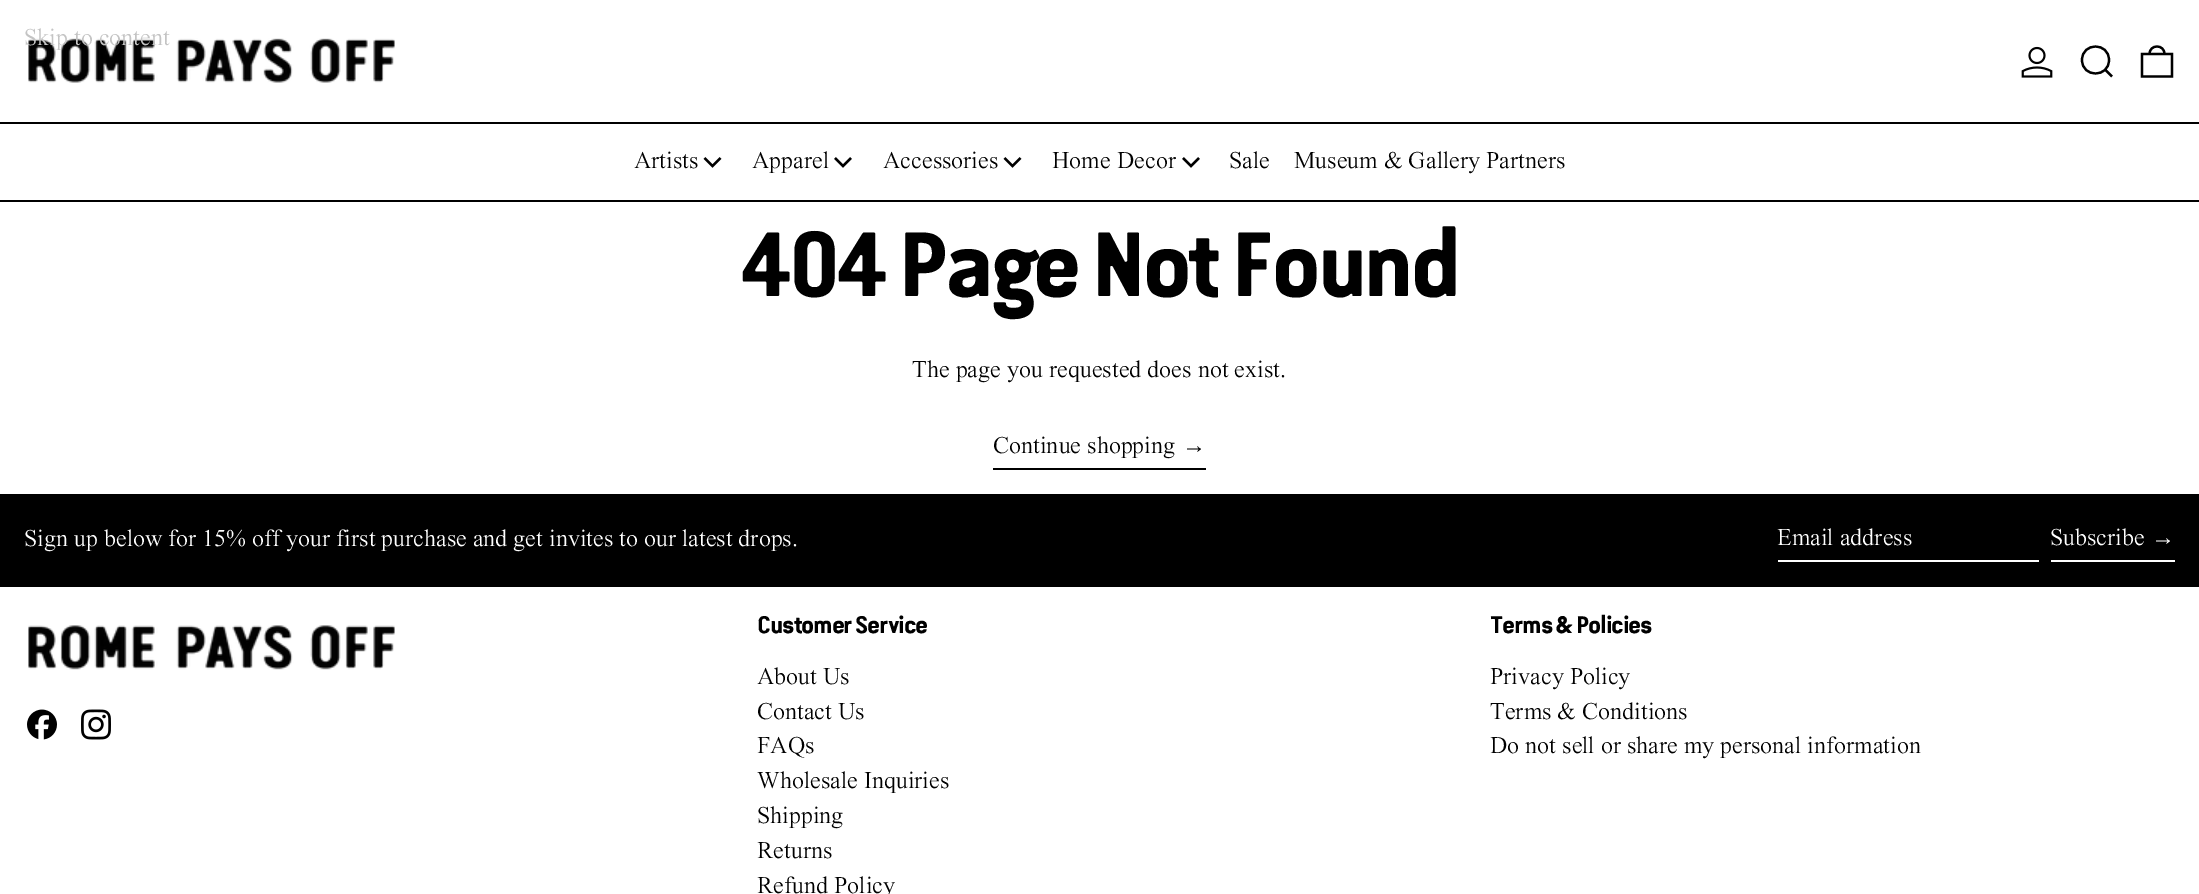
%!PS
<< /PageSize [2199 894] >> setpagedevice
/m/moveto load def
/l/rlineto load def
/c/rcurveto load def
/z/closepath load def
/s/stroke load def
/w/setlinewidth load def
/C { dup -16 bitshift 255 div exch dup -8 bitshift 255 and 255 div exch 255 and 255 div setrgbcolor } def
/F { [ exch dup neg 0 0 3 -1 roll 0 0 ] selectfont } def
/T { moveto show } def
/R { rectfill } def
/I { 5 dict begin { /h /w /y /x /name } { exch def } forall
  gsave x y translate w h scale
  w h 8 [w 0 0 h 0 0] name (r) file false 3 colorimage grestore end } def
0 894 translate 1 -1 scale
4 setmiterlimit
16#FFFFFF C
0 0 2199 894 R
(1.rgb) 28 38 367 45 I
/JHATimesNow-Light 24 F
16#C4C4C4 C
(Skip to content) 24 45 T
16#000000 C
0 200 2199 2 R
(2.rgb) 2021 46 32 32 I
2.2 w
2082 60 m 0 18 27 18 27 0 c 0 -18 -27 -18 -27 0 c z 2105 69.5 m 7 7 l s
2142 54 m 30 0 l 0 22.5 l -30 0 l z 2164.5 54 m 0 -10 -15 -10 -15 0 c s
0 122 2199 2 R
(Artists) 634 168 T
704.5 158 m 8 8 l 8 -8 l s
(Apparel) 752 168 T
835 158 m 8 8 l 8 -8 l s
(Accessories) 883 168 T
1004.5 158 m 8 8 l 8 -8 l s
(Home Decor) 1052 168 T
1183 158 m 8 8 l 8 -8 l s
(Sale) 1229 168 T
(Museum & Gallery Partners) 1294 168 T
0 494 2199 93 R
/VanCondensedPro-Bold 91.5 F
740 296 m -4.6 0 (404 Page Not Found) ashow
/JHATimesNow-Light 24 F
(The page you requested does not exist.) 912 377 T
993 468 213 2 R
(Continue shopping) 993 453 T
/LiberationSerif-Regular 24 F
(→) 1182 453 T
/JHATimesNow-Light 24 F
16#FFFFFF C
(Sign up below for 15% off your first purchase and get invites to our latest drops.) 24 546 T
1778 560 261 2 R
(Email address) 1777 545 T
2051 560 124 2 R
(Subscribe) 2050 545 T
/LiberationSerif-Regular 24 F
(→) 2151 545 T
(3.rgb) 28 625 367 45 I
(4.rgb) 27 709 30 31 I
(5.rgb) 81 709 30 31 I
/VanCondensedPro-Bold 24 F
16#000000 C
757 633 m -1.25 0 (Customer Service) ashow
/JHATimesNow-Light 24 F
(About Us) 757 684 T
(Contact Us) 757 719 T
(FAQs) 757 753 T
(Wholesale Inquiries) 757 788 T
(Shipping) 757 823 T
(Returns) 757 858 T
(Refund Policy) 757 893 T
/VanCondensedPro-Bold 24 F
1490 633 m -1.25 0 (Terms & Policies) ashow
/JHATimesNow-Light 24 F
(Privacy Policy) 1490 684 T
(Terms & Conditions) 1490 719 T
(Do not sell or share my personal information) 1490 753 T
showpage
